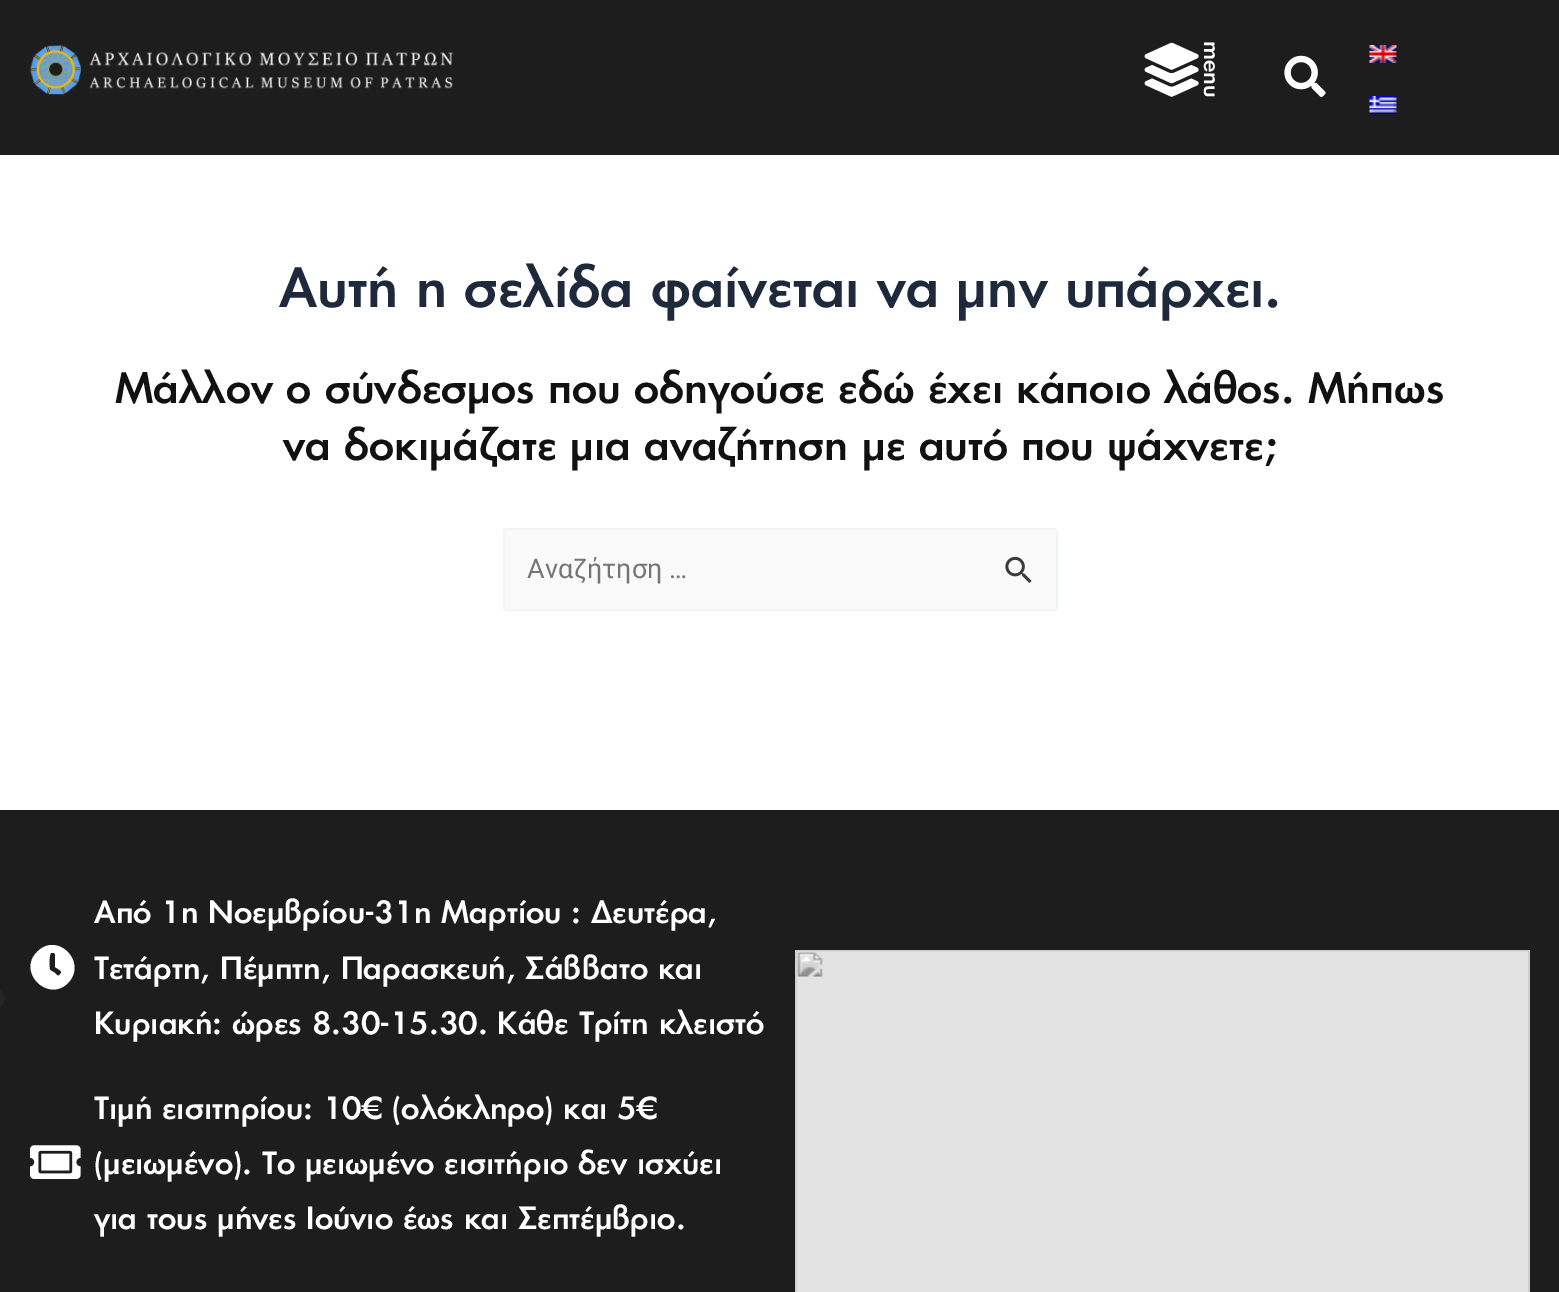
%!PS
<< /PageSize [1559 1292] >> setpagedevice
/m/moveto load def
/l/rlineto load def
/c/rcurveto load def
/z/closepath load def
/f/fill load def
/s/stroke load def
/q/gsave load def
/Q_/grestore load def
/w/setlinewidth load def
/C { dup -16 bitshift 255 div exch dup -8 bitshift 255 and 255 div exch 255 and 255 div setrgbcolor } def
/F { [ exch dup neg 0 0 3 -1 roll 0 0 ] selectfont } def
/T { moveto show } def
/R { rectfill } def
/Q { 5 dict begin { /r /h /w /y /x } { exch def } forall
  x r add y moveto x w add y 2 copy h add r arct x w add y h add x 1 index r arct
  x y h add x y r arct x y 2 copy exch w add exch r arct closepath end } def
/I { 5 dict begin { /h /w /y /x /name } { exch def } forall
  gsave x y translate w h scale
  w h 8 [w 0 0 h 0 0] name (r) file false 3 colorimage grestore end } def
0 1292 translate 1 -1 scale
4 setmiterlimit
16#FFFFFF C
0 0 1559 1292 R
16#1D1D1D C
0 0 1559 155 R
(1.rgb) 30 45 424 50 I
(2.rgb) 1144 42 55 55 I
/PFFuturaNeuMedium-Medium 21.5 F
16#FFFFFF C
q 1204 41 translate 90 rotate 0 0 m (menu) show Q_
(3.rgb) 1284 55 42 42 I
(4.rgb) 1369 45 28 18 I
(5.rgb) 1369 96 28 18 I
/PFFuturaNeuMedium-Medium 52.5 F
16#1E293B C
(Αυτή η σελίδα φαίνεται να μην υπάρχει.) 279 307 T
/PFFuturaNeuMedium-Medium 40.5 F
16#111111 C
(Μάλλον ο σύνδεσμος που οδηγούσε εδώ έχει κάποιο λάθος. Μήπως) 115 403 T
(να δοκιμάζατε μια αναζήτηση με αυτό που ψάχνετε;) 283 460 T
16#FAFAFA C
504 529 553 81 2 Q q f Q_
16#F2F5F7 C
2 w
s
/Roboto-Regular 27 F
16#757575 C
(Αναζήτηση …) 527 578 T
(6.rgb) 1005 556 27 27 I
16#1D1D1D C
0 810 1559 482 R
(7.rgb) 0 990 5 17 I
16#FFFFFF C
37 952 m 20 -21 51 10 31 31 c -20 20 -51 -11 -31 -31 c z 61 973 m 2 -2 -5 -5 -6 -6 c 0 -13 l -1 -2 -3 -1 -4 -1 c -2 1 -2 15 -1 17 c 5 3 l 3 3 3 4 6 0 c z f
/PFFuturaNeuMedium-Medium 29.7 F
(Από 1η Νοεμβρίου-31η Μαρτίου : Δευτέρα,) 94 923 T
(Τετάρτη, Πέμπτη, Παρασκευή, Σάββατο και) 94 979 T
(Κυριακή: ώρες 8.30-15.30. Κάθε Τρίτη κλειστό) 94 1034 T
(8.rgb) 30 1145 51 34 I
(Τιμή εισιτηρίου: 10€ \(ολόκληρο\) και 5€) 94 1119 T
(\(μειωμένο\). Το μειωμένο εισιτήριο δεν ισχύει) 94 1174 T
(για τους μήνες Ιούνιο έως και Σεπτέμβριο.) 94 1229 T
(9.rgb) 795 950 735 342 I
showpage
